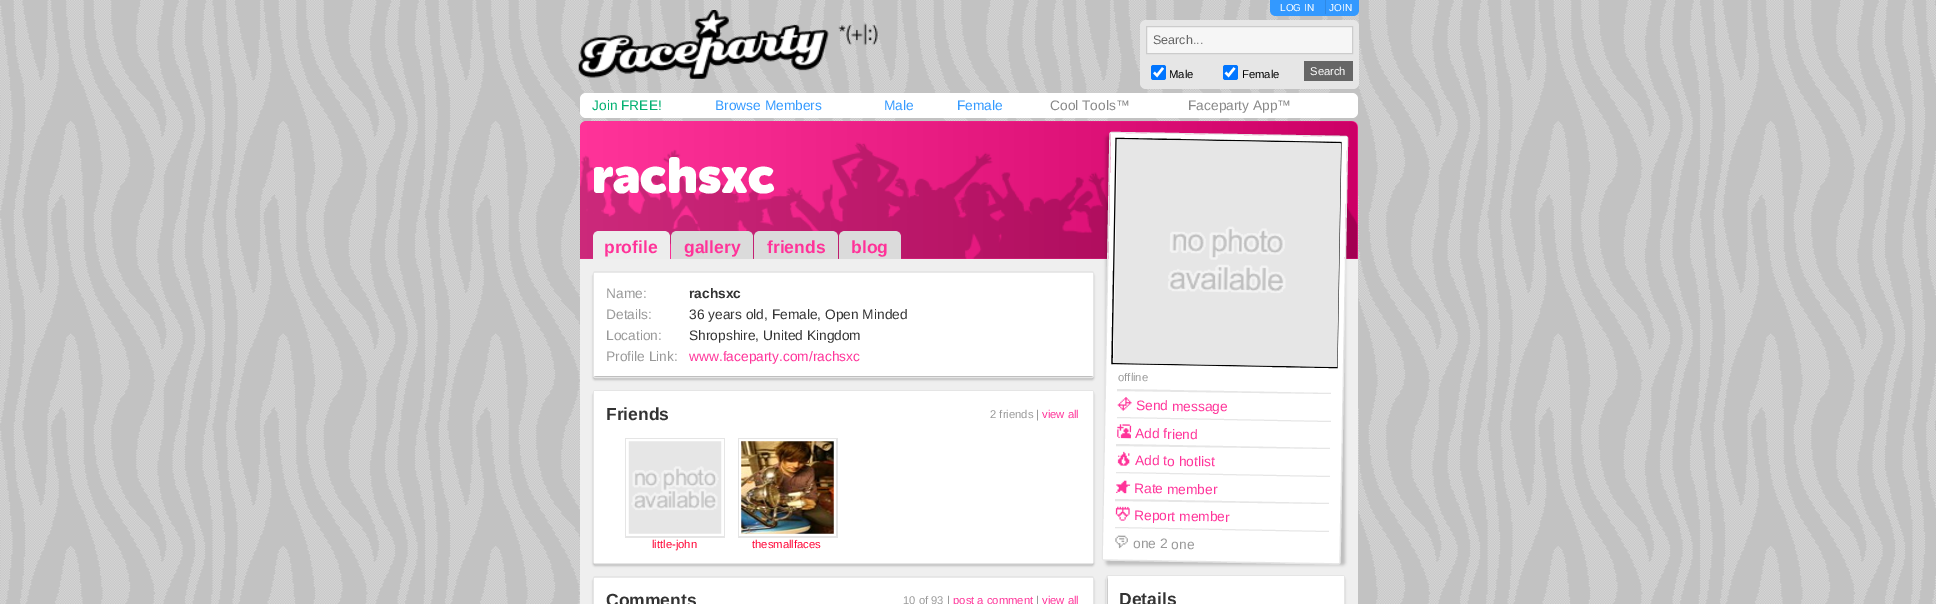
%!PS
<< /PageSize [1936 604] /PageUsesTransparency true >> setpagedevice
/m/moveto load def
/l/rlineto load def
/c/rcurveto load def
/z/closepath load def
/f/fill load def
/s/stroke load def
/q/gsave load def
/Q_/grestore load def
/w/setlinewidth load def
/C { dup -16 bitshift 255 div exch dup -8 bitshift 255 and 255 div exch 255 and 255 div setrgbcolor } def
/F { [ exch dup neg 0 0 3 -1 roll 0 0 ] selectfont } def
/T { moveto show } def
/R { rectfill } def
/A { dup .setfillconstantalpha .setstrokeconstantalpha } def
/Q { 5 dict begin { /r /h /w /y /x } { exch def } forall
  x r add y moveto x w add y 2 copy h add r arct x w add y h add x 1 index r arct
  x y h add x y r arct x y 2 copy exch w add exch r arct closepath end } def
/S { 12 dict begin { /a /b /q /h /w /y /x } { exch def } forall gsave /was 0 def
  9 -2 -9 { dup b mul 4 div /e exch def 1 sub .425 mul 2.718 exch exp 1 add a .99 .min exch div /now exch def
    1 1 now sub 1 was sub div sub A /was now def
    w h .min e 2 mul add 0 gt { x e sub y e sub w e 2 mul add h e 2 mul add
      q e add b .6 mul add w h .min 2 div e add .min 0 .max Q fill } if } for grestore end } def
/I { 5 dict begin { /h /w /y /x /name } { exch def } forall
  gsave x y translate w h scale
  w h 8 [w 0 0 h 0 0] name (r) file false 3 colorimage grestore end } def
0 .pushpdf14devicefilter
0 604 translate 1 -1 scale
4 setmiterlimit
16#FFFFFF C
0 0 1936 604 R
(1.rgb) 0 0 1936 604 I
(2.rgb) 578 10 300 69 I
16#3399FF C
1270 0 m 89 0 l 0 10 l 0 3.5 -2.5 6 -6 6 c -77 0 l -3.5 0 -6 -2.5 -6 -6 c z f
16#2E89E5 C
1325 0 1 14 R
/LiberationSans-Regular 10 F
16#FFFFFF C
(LOG IN) 1280 11 T
(JOIN) 1329 11 T
16#E6E6E6 C
1140 20 219 69 6 Q f
16#F6F6F6 C
1146.5 26.5 m 206 0 l 0 27 l -206 0 l z q f Q_
16#CCCCCC C
s
/LiberationSans-Regular 12.5 F
16#666666 C
(Search...) 1153 44 T
16#0075FF C
1151 65 15 15 2.5 Q f
16#FFFFFF C
2.4 w
1154 72.5 m 3 3 l 6 -7.5 l s
/LiberationSans-Regular 11.25 F
16#000000 C
(Male) 1169 78 T
16#0075FF C
1223 65 15 15 2.5 Q f
16#FFFFFF C
1225.5 72.5 m 3 3 l 6 -7.5 l s
16#000000 C
(Female) 1242 78 T
16#666666 C
1304 61 49 20 R
16#FFFFFF C
(Search) 1310 75 T
580 93 778 25 6 Q f
/LiberationSans-Regular 13.75 F
16#00B070 C
(Join FREE!) 592 110 T
16#3399FF C
(Browse Members) 715 110 T
(Male) 884 110 T
(Female) 957 110 T
16#888888 C
(Cool Tools™) 1050 110 T
(Faceparty App™) 1188 110 T
16#FF3399 C
586 121 m 766 0 l 3.5 0 6 2.5 6 6 c 0 132 l -778 0 l 0 -132 l 0 -3.5 2.5 -6 6 -6 c z f
(3.rgb) 579 121 779 138 I
/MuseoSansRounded-Black 50 F
16#FFFFFF C
(rachsxc) 592 193 T
16#EDEDED C
599 231 m 65 0 l 3.5 0 6 2.5 6 6 c 0 22 l -77 0 l 0 -22 l 0 -3.5 2.5 -6 6 -6 c z f
/LiberationSans-Bold 17.5 F
16#FF3399 C
(profile) 604 253 T
16#DBDBDB C
677 231 m 70 0 l 3.5 0 6 2.5 6 6 c 0 22 l -82 0 l 0 -22 l 0 -3.5 2.5 -6 6 -6 c z f
16#FF3399 C
(gallery) 684 253 T
16#DBDBDB C
760 231 m 72 0 l 3.5 0 6 2.5 6 6 c 0 22 l -84 0 l 0 -22 l 0 -3.5 2.5 -6 6 -6 c z f
16#FF3399 C
(friends) 767 253 T
16#DBDBDB C
845 231 m 50 0 l 3.5 0 6 2.5 6 6 c 0 22 l -62 0 l 0 -22 l 0 -3.5 2.5 -6 6 -6 c z f
16#FF3399 C
(blog) 851 253 T
16#EFEFEF C
580 259 778 345 R
16#000000 C
593 274 501 106 2.5 1 .2 S
16#E5E5E5 C
1 w
593.5 271.5 500 106 2 Q s
16#FFFFFF C
594 273 499 103 R
/LiberationSans-Regular 13.75 F
16#999999 C
(Name:) 606 298 T
/LiberationSans-Bold 13.75 F
16#333333 C
(rachsxc) 689 298 T
/LiberationSans-Regular 13.75 F
16#999999 C
(Details:) 606 319 T
16#333333 C
(36 years old, Female, Open Minded) 689 319 T
16#999999 C
(Location:) 606 340 T
16#333333 C
(Shropshire, United Kingdom) 689 340 T
16#999999 C
(Profile Link:) 606 361 T
16#FF3399 C
(www.faceparty.com/rachsxc) 689 361 T
16#000000 C
593 393 501 173 2.5 1 .2 S
16#E5E5E5 C
593.5 390.5 500 173 2 Q s
16#FFFFFF C
594 391 499 172 R
/LiberationSans-Bold 17.5 F
16#333333 C
(Friends) 606 420 T
/LiberationSans-Regular 11.25 F
16#999999 C
(2 friends |) 990 418 T
16#FF3399 C
(view all) 1042 418 T
16#E5E5E5 C
625 438 100 100 R
16#FFFFFF C
626 439 98 97 R
(4.rgb) 628 441 94 93 I
16#FF0033 C
(little-john) 652 548 T
16#E5E5E5 C
738 438 100 100 R
16#FFFFFF C
739 439 97 97 R
(5.rgb) 741 441 93 93 I
16#FF0033 C
(thesmallfaces) 752 548 T
16#000000 C
593 579 501 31 2.5 1 .2 S
16#E5E5E5 C
593.5 576.5 500 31 2 Q s
16#FFFFFF C
594 578 499 26 R
/LiberationSans-Bold 17.5 F
16#333333 C
(Comments) 606 606 T
/LiberationSans-Regular 11.25 F
16#999999 C
(10 of 93 |) 903 604 T
16#FF3399 C
(post a comment) 953 604 T
16#999999 C
(|) 1036 604 T
16#FF3399 C
(view all) 1042 604 T
q
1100 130 m 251 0 l 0 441 l -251 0 l z 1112 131.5 m 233.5 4.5 l 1.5 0 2.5 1 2.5 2.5 c -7.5 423.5 l 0 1.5 -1 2.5 -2.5 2.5 c -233.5 -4 l -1.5 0 -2.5 -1 -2.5 -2.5 c 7.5 -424 l 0 -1 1 -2.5 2.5 -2.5 c z eoclip newpath
16#000000 C
1106 136 239 429 2.5 1.5 .2 S
Q_
16#E5E5E5 C
1.3 w
1112 132.5 m 233.5 4 l 1 0 2 1 2 2 c -7.5 423.5 l 0 1 -1 2 -2 2 c -233.5 -4 l -1 0 -2 -1 -2 -2 c 7.5 -424 l 0 -1 1 -1.5 2 -1.5 c z s
16#FFFFFF C
1111 133 m 236 4 l -8 426 l -236 -4 l z f
16#000000 C
1116 138.5 m 225 4 l -4 225 l -225 -4 l z s
(6.rgb) 1113 139 229 228 I
16#999999 C
q 1118 381 translate 1 rotate 0 0 m (offline) show Q_
16#E6E6E6 C
1117 389 m 214 4 l 0 1 l -214 -3 l z f
(7.rgb) 1117 397 15 14 I
/LiberationSans-Regular 13.75 F
16#FF3399 C
q 1136 410 translate 1 rotate 0 0 m (Send message) show Q_
16#E6E6E6 C
1117 417 m 214 4 l 0 1 l -214 -4 l z f
(8.rgb) 1117 424 15 15 I
16#FF3399 C
q 1135 438 translate 1 rotate 0 0 m (Add friend) show Q_
16#E6E6E6 C
1116 444 m 214 4 l 0 1 l -214 -3 l z f
(9.rgb) 1117 451 13 15 I
16#FF3399 C
q 1135 465 translate 1 rotate 0 0 m (Add to hotlist) show Q_
16#E6E6E6 C
1116 472 m 214 4 l 0 1 l -214 -4 l z f
(10.rgb) 1116 480 15 14 I
16#FF3399 C
q 1134 493 translate 1 rotate 0 0 m (Rate member) show Q_
16#E6E6E6 C
1115 499 m 214 4 l 0 1 l -214 -3 l z f
(11.rgb) 1115 506 15 15 I
16#FF3399 C
q 1134 520 translate 1 rotate 0 0 m (Report member) show Q_
16#E6E6E6 C
1115 527 m 214 4 l 0 1 l -214 -4 l z f
(12.rgb) 1115 535 13 14 I
16#999999 C
q 1133 548 translate 1 rotate 0 0 m (one 2 one) show Q_
16#000000 C
1106 578 239 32 2.5 1 .2 S
16#E5E5E5 C
1 w
1106.5 575.5 238 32 2 Q s
16#FFFFFF C
1108 576 236 28 R
/LiberationSans-Bold 17.5 F
16#333333 C
(Details) 1119 605 T
.poppdf14devicefilter showpage
